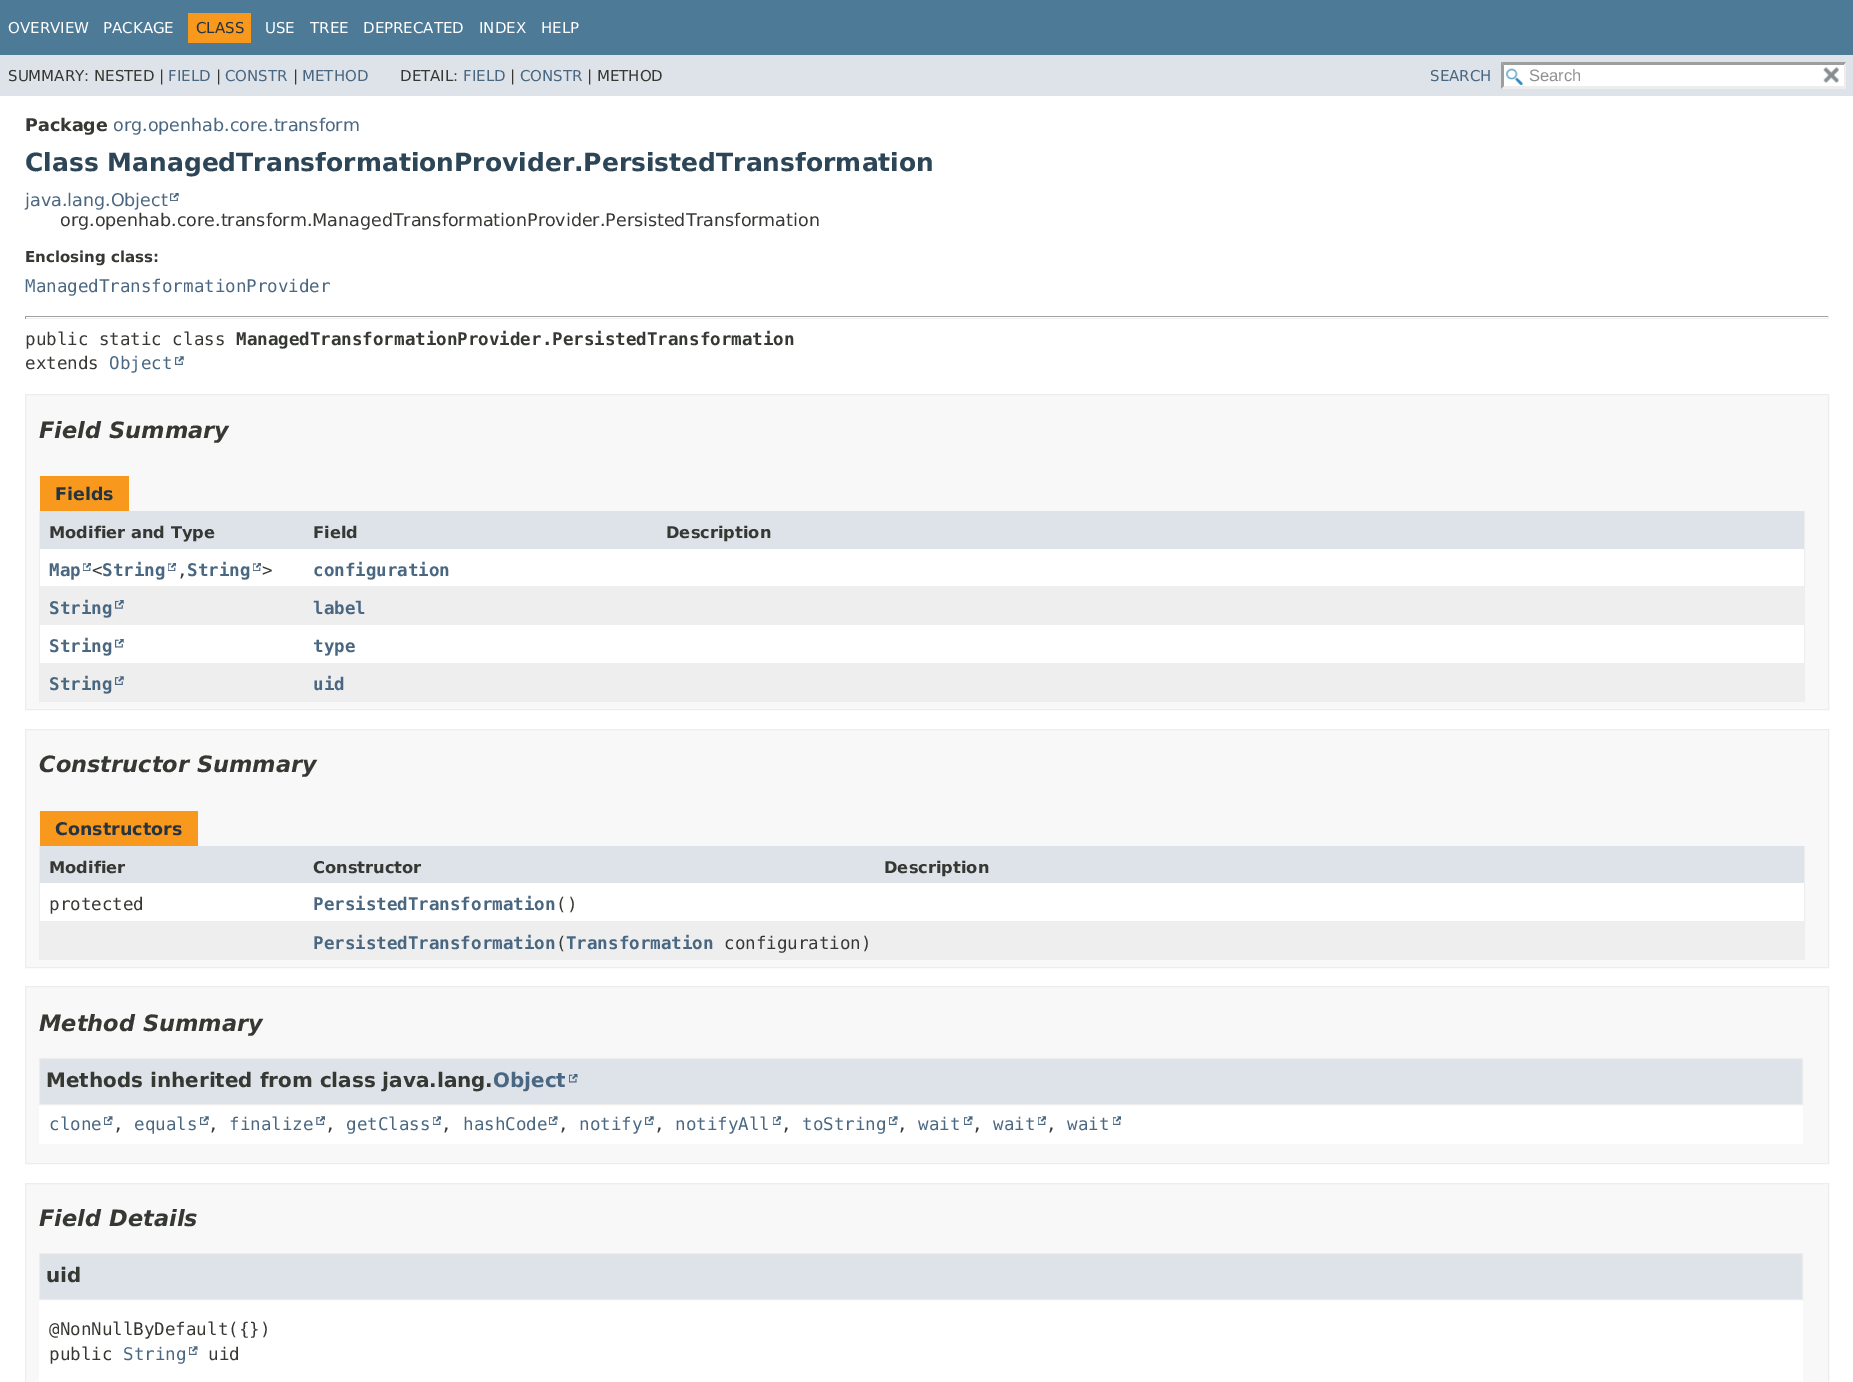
%!PS
<< /PageSize [1853 1382] >> setpagedevice
/m/moveto load def
/l/rlineto load def
/z/closepath load def
/f/fill load def
/s/stroke load def
/q/gsave load def
/Q_/grestore load def
/C { dup -16 bitshift 255 div exch dup -8 bitshift 255 and 255 div exch 255 and 255 div setrgbcolor } def
/F { [ exch dup neg 0 0 3 -1 roll 0 0 ] selectfont } def
/T { moveto show } def
/R { rectfill } def
/I { 5 dict begin { /h /w /y /x /name } { exch def } forall
  gsave x y translate w h scale
  w h 8 [w 0 0 h 0 0] name (r) file false 3 colorimage grestore end } def
0 1382 translate 1 -1 scale
4 setmiterlimit
16#FFFFFF C
0 0 1853 1382 R
16#4D7A97 C
0 0 1853 55 R
/DejaVuSans-Regular 15 F
16#FFFFFF C
(OVERVIEW) 8 33 T
(PACKAGE) 103 33 T
16#F8981D C
188 13 63 30 R
16#253441 C
(CLASS) 196 33 T
16#FFFFFF C
(USE) 265 33 T
(TREE) 310 33 T
(DEPRECATED) 363 33 T
(INDEX) 479 33 T
(HELP) 541 33 T
16#DEE3E9 C
0 55 1853 41 R
16#353833 C
(SUMMARY: NESTED |) 8 81 T
16#4A6782 C
(FIELD) 168 81 T
16#353833 C
(|) 216 81 T
16#4A6782 C
(CONSTR) 225 81 T
16#353833 C
(|) 293 81 T
16#4A6782 C
(METHOD) 302 81 T
16#353833 C
(DETAIL:) 400 81 T
16#4A6782 C
(FIELD) 463 81 T
16#353833 C
(|) 510 81 T
16#4A6782 C
(CONSTR) 520 81 T
16#353833 C
(| METHOD) 587 81 T
16#4A6782 C
(SEARCH) 1430 81 T
16#FFFFFF C
1501 63 345 26 R
(1.rgb) 1506 68 17 17 I
16#9E9E9E C
1501 62 m 345 0 l -2 3 l -340 0 l z f
16#EDEDED C
1846 62.5 m 0 26.5 l -2 -3 l 0 -21 l z f
1846 89 m -345 0 l 3 -3 l 340 0 l z f
16#9E9E9E C
1501 89 m 0 -26.5 l 3 2.5 l 0 21 l z f
/LiberationSans-Regular 16.5 F
16#909090 C
(Search) 1529 81 T
(2.rgb) 1823 67 16 16 I
/DejaVuSans-Bold 17.5 F
16#353833 C
(Package) 25 131 T
/DejaVuSans-Regular 17.5 F
16#4A6782 C
(org.openhab.core.transform) 113 131 T
/DejaVuSans-Bold 25 F
16#2C4557 C
(Class ManagedTransformationProvider.PersistedTransformation) 25 171 T
/DejaVuSans-Regular 17.5 F
16#4A6782 C
(java.lang.Object) 25 206 T
(3.rgb) 170 193 9 8 I
16#353833 C
(org.openhab.core.transform.ManagedTransformationProvider.PersistedTransformation) 60 226 T
/DejaVuSans-Bold 15 F
(Enclosing class:) 25 262 T
/DejaVuSansMono-Regular 17.5 F
16#4A6782 C
(ManagedTransformationProvider) 25 292 T
16#9F9F9F C
25 316 1804 1 R
16#EEEEEE C
1828 316 1 3 R
25 318 1804 1 R
16#9F9F9F C
25 316 1 3 R
16#353833 C
(public static class) 25 345 T
/DejaVuSansMono-Bold 17.5 F
(ManagedTransformationProvider.PersistedTransformation) 236 345 T
/DejaVuSansMono-Regular 17.5 F
(extends) 25 369 T
16#4A6782 C
(Object) 109 369 T
(4.rgb) 175 356 9 9 I
16#F8F8F8 C
25.5 394.5 m 1803 0 l 0 315 l -1803 0 l z q f Q_
16#EDEDED C
s
/DejaVuSans-BoldItalic 22.5 F
16#353833 C
(Field Summary) 39 438 T
16#F8981D C
40 476 89 35 R
/DejaVuSans-Bold 17.5 F
16#253441 C
(Fields) 55 500 T
16#EDEDED C
1804 511 1 192 R
39 701 1766 1 R
39 511 1 192 R
16#DEE3E9 C
40 511 1764 38 R
/DejaVuSans-Bold 16.25 F
16#353833 C
(Modifier and Type) 49 538 T
(Field) 313 538 T
(Description) 666 538 T
16#FFFFFF C
40 549 1764 37 R
/DejaVuSansMono-Bold 17.5 F
16#4A6782 C
(Map) 49 576 T
(5.rgb) 83 563 8 8 I
/DejaVuSansMono-Regular 17.5 F
16#353833 C
(<) 92 576 T
/DejaVuSansMono-Bold 17.5 F
16#4A6782 C
(String) 102 576 T
(5.rgb) 168 563 8 8 I
(String) 187 576 T
(5.rgb) 253 563 8 8 I
/DejaVuSansMono-Regular 17.5 F
16#353833 C
(>) 262 576 T
(,) 177 576 T
/DejaVuSansMono-Bold 17.5 F
16#4A6782 C
(configuration) 313 576 T
16#EEEEEF C
40 586 1764 39 R
16#4A6782 C
(String) 49 614 T
(6.rgb) 115 600 9 9 I
(label) 313 614 T
16#FFFFFF C
40 625 1764 38 R
16#4A6782 C
(String) 49 652 T
(7.rgb) 115 639 9 9 I
(type) 313 652 T
16#EEEEEF C
40 663 1764 38 R
16#4A6782 C
(String) 49 690 T
(8.rgb) 115 676 9 9 I
(uid) 313 690 T
16#F8F8F8 C
25.5 729.5 m 1803 0 l 0 238 l -1803 0 l z q f Q_
16#EDEDED C
s
/DejaVuSans-BoldItalic 22.5 F
16#353833 C
(Constructor Summary) 39 772 T
16#F8981D C
40 811 158 35 R
/DejaVuSans-Bold 17.5 F
16#253441 C
(Constructors) 55 835 T
16#EDEDED C
1804 846 1 114 R
39 959 1766 1 R
39 846 1 114 R
16#DEE3E9 C
40 846 1764 37 R
/DejaVuSans-Bold 16.25 F
16#353833 C
(Modifier) 49 873 T
(Constructor) 313 873 T
(Description) 884 873 T
16#FFFFFF C
40 883 1764 38 R
/DejaVuSansMono-Regular 17.5 F
16#353833 C
(protected) 49 910 T
/DejaVuSansMono-Bold 17.5 F
16#4A6782 C
(PersistedTransformation) 313 910 T
/DejaVuSansMono-Regular 17.5 F
16#353833 C
(\(\)) 556 910 T
16#EEEEEF C
40 921 1764 38 R
/DejaVuSansMono-Bold 17.5 F
16#4A6782 C
(PersistedTransformation Transformation) 313 949 T
/DejaVuSansMono-Regular 17.5 F
16#353833 C
(\() 556 949 T
(configuration\)) 724 949 T
16#F8F8F8 C
25.5 986.5 m 1803 0 l 0 177 l -1803 0 l z q f Q_
16#EDEDED C
s
/DejaVuSans-BoldItalic 22.5 F
16#353833 C
(Method Summary) 39 1031 T
16#FFFFFF C
39 1105 1764 39 R
16#DEE3E9 C
39.5 1058.5 m 1763 0 l 0 46 l -1763 0 l z q f Q_
16#EDEDED C
s
/DejaVuSans-Bold 19.95 F
16#353833 C
(Methods inherited from class java.lang.) 46 1087 T
16#4A6782 C
(Object) 493 1087 T
(9.rgb) 569 1074 9 9 I
/DejaVuSansMono-Regular 17.5 F
(clone) 49 1130 T
(10.rgb) 104 1116 9 9 I
16#353833 C
(,) 113 1130 T
16#4A6782 C
(equals) 134 1130 T
(4.rgb) 200 1116 9 9 I
16#353833 C
(,) 208 1130 T
16#4A6782 C
(finalize) 229 1130 T
(11.rgb) 316 1116 9 9 I
16#353833 C
(,) 325 1130 T
16#4A6782 C
(getClass) 346 1130 T
(12.rgb) 433 1116 8 9 I
16#353833 C
(,) 441 1130 T
16#4A6782 C
(hashCode) 463 1130 T
(10.rgb) 549 1116 9 9 I
16#353833 C
(,) 558 1130 T
16#4A6782 C
(notify) 579 1130 T
(4.rgb) 645 1116 9 9 I
16#353833 C
(,) 654 1130 T
16#4A6782 C
(notifyAll) 675 1130 T
(12.rgb) 773 1116 8 9 I
16#353833 C
(,) 781 1130 T
16#4A6782 C
(toString) 802 1130 T
(10.rgb) 889 1116 9 9 I
16#353833 C
(,) 897 1130 T
16#4A6782 C
(wait) 918 1130 T
(10.rgb) 964 1116 9 9 I
16#353833 C
(,) 972 1130 T
16#4A6782 C
(wait) 993 1130 T
(12.rgb) 1038 1116 8 9 I
16#353833 C
(,) 1046 1130 T
16#4A6782 C
(wait) 1067 1130 T
(12.rgb) 1113 1116 8 9 I
16#F8F8F8 C
25.5 1183.5 m 1803 0 l 0 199 l -1803 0 l z q f Q_
16#EDEDED C
s
/DejaVuSans-BoldItalic 22.5 F
16#353833 C
(Field Details) 39 1226 T
16#FFFFFF C
39 1300 1764 82 R
16#DEE3E9 C
39.5 1253.5 m 1763 0 l 0 46 l -1763 0 l z q f Q_
16#EDEDED C
s
/DejaVuSans-Bold 19.95 F
16#353833 C
(uid) 46 1282 T
/DejaVuSansMono-Regular 17.5 F
(@NonNullByDefault\({}\)) 49 1335 T
(public) 49 1360 T
16#4A6782 C
(String) 123 1360 T
(10.rgb) 189 1346 9 9 I
16#353833 C
(uid) 208 1360 T
showpage
